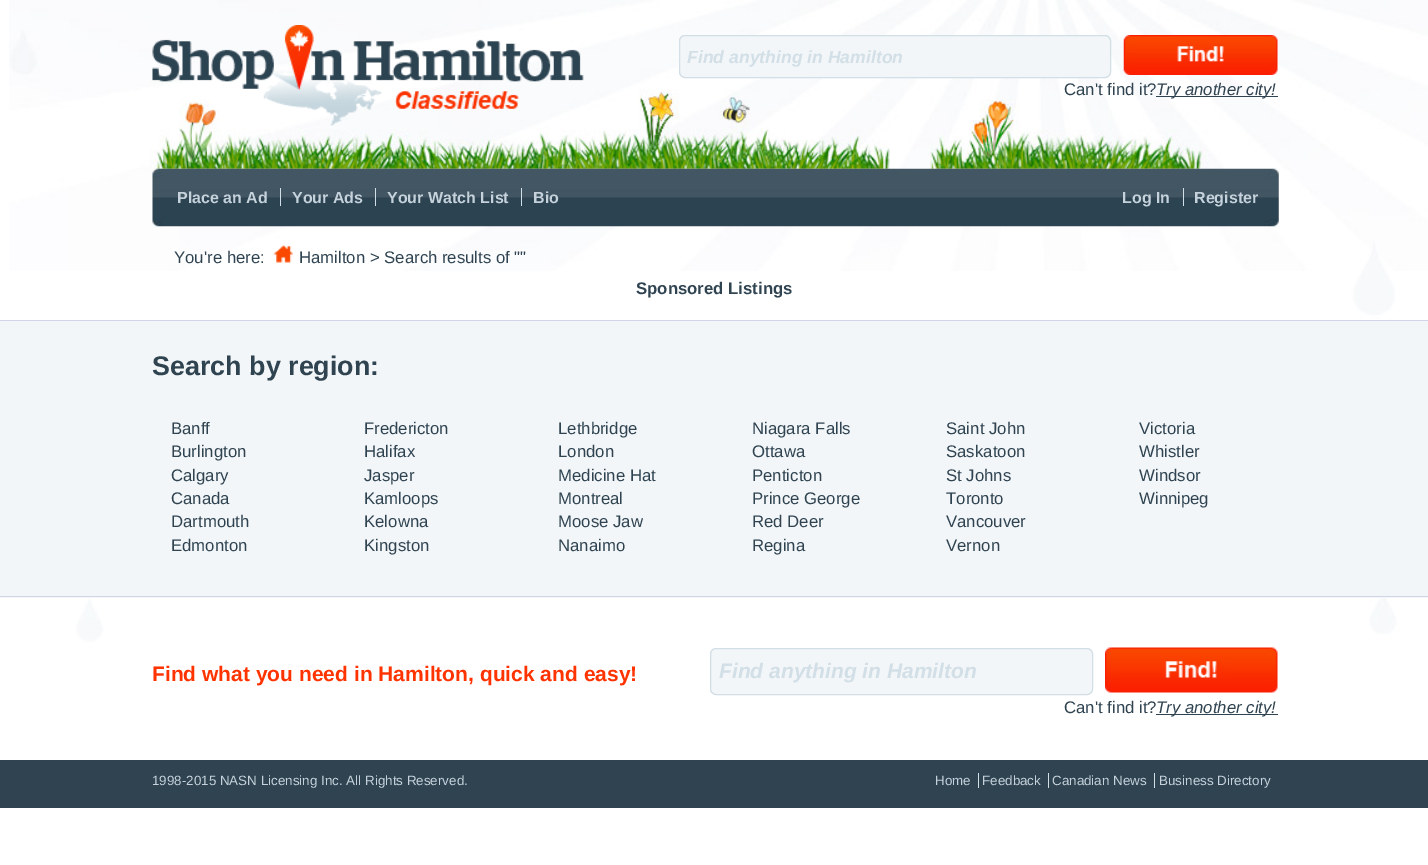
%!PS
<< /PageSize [1428 865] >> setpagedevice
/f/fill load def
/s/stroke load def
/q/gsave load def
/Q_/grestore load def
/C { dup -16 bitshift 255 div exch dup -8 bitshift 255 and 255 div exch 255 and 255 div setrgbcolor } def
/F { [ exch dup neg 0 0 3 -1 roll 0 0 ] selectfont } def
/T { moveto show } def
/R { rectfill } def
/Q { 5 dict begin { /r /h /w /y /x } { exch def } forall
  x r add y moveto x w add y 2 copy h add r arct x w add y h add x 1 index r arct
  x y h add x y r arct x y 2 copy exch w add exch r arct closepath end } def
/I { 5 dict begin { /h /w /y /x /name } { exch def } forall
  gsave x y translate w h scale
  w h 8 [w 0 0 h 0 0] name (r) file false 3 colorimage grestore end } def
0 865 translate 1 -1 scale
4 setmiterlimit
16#FFFFFF C
0 0 1428 865 R
(1.rgb) 10 271 1418 489 I
(2.rgb) 9 0 1419 271 I
(3.rgb) 152 25 432 101 I
16#F2F6F8 C
679.5 35.5 431 42 5.5 Q q f Q_
16#D2DFE7 C
s
/LiberationSans-BoldItalic 17.6 F
(Find anything in Hamilton) 687 63 T
(4.rgb) 1123 35 155 40 I
/LiberationSans-Regular 16.75 F
16#2F4351 C
(Can't find it?) 1064 95 T
1156 96 122 1 R
/LiberationSans-Italic 16.75 F
(Try another city!) 1156 95 T
(5.rgb) 152 168 1127 59 I
/LiberationSans-Bold 16 F
16#C5D2DB C
(Place an Ad) 177 203 T
16#D2DFE7 C
280 188 1 18 R
16#C5D2DB C
(Your Ads) 292 203 T
16#D2DFE7 C
375 188 1 18 R
16#C5D2DB C
(Your Watch List) 387 203 T
16#D2DFE7 C
521 188 1 18 R
16#C5D2DB C
(Bio) 533 203 T
(Log In) 1122 203 T
16#D2DFE7 C
1183 188 1 18 R
16#C5D2DB C
(Register) 1194 203 T
/LiberationSans-Regular 16.75 F
16#2F4351 C
(You're here:) 174 263 T
(6.rgb) 273 245 21 18 I
(Hamilton > Search results of "") 299 263 T
/LiberationSans-Bold 16.75 F
(Sponsored Listings) 636 294 T
16#F2F6F8 C
0 321 1428 277 R
16#D2D5E7 C
0 320 1428 1 R
0 596 1428 1 R
/LiberationSans-Bold 26.9 F
16#2F4351 C
(Search by region:) 152 375 T
/LiberationSans-Regular 16.75 F
(Banff) 171 434 T
(Burlington) 171 457 T
(Calgary) 171 481 T
(Canada) 171 504 T
(Dartmouth) 171 527 T
(Edmonton) 171 551 T
(Fredericton) 364 434 T
(Halifax) 364 457 T
(Jasper) 364 481 T
(Kamloops) 364 504 T
(Kelowna) 364 527 T
(Kingston) 364 551 T
(Lethbridge) 558 434 T
(London) 558 457 T
(Medicine Hat) 558 481 T
(Montreal) 558 504 T
(Moose Jaw) 558 527 T
(Nanaimo) 558 551 T
(Niagara Falls) 752 434 T
(Ottawa) 752 457 T
(Penticton) 752 481 T
(Prince George) 752 504 T
(Red Deer) 752 527 T
(Regina) 752 551 T
(Saint John) 946 434 T
(Saskatoon) 946 457 T
(St Johns) 946 481 T
(Toronto) 946 504 T
(Vancouver) 946 527 T
(Vernon) 946 551 T
(Victoria) 1139 434 T
(Whistler) 1139 457 T
(Windsor) 1139 481 T
(Winnipeg) 1139 504 T
/LiberationSans-Bold 21 F
16#FF3300 C
(Find what you need in Hamilton, quick and easy!) 152 681 T
16#F2F6F8 C
710.5 648.5 382 46 5.5 Q q f Q_
16#D2DFE7 C
s
/LiberationSans-BoldItalic 21 F
(Find anything in Hamilton) 719 678 T
(7.rgb) 1105 647 173 46 I
/LiberationSans-Regular 16.75 F
16#2F4351 C
(Can't find it?) 1064 713 T
1156 714 122 1 R
/LiberationSans-Italic 16.75 F
(Try another city!) 1156 713 T
0 760 1428 48 R
/LiberationSans-Regular 13.4 F
16#C5D2DB C
(1998-2015 NASN Licensing Inc. All Rights Reserved.) 152 785 T
(Home) 935 785 T
16#D2DFE7 C
978 773 1 15 R
16#C5D2DB C
(Feedback) 982 785 T
16#D2DFE7 C
1048 773 1 15 R
16#C5D2DB C
(Canadian News) 1052 785 T
16#D2DFE7 C
1154 773 1 15 R
16#C5D2DB C
(Business Directory) 1159 785 T
showpage
